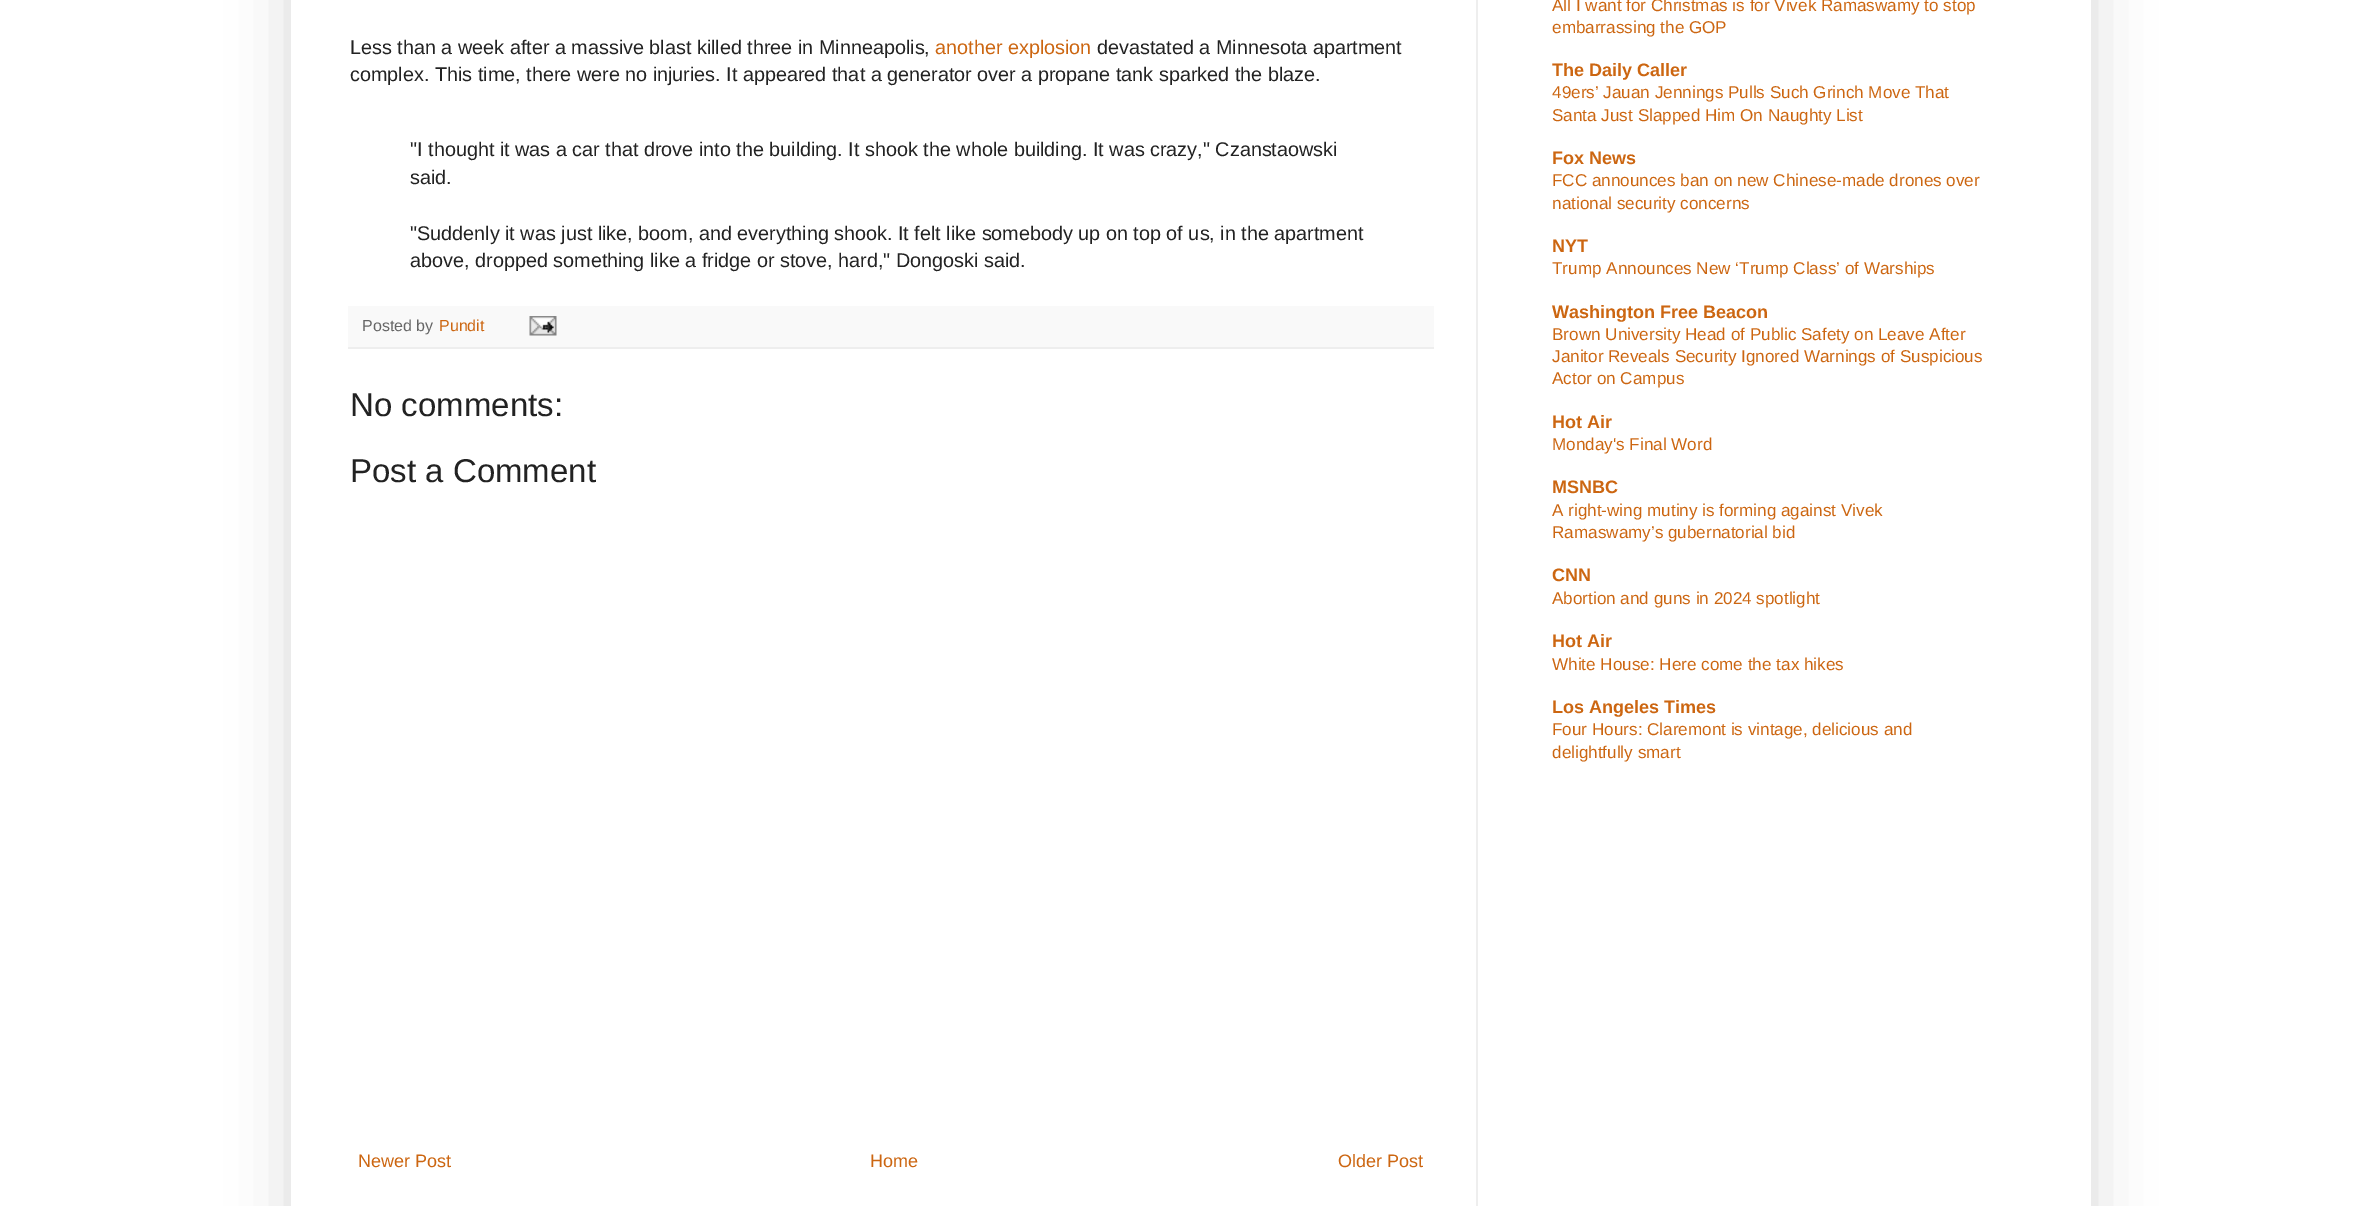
%!PS
<< /PageSize [2380 1206] /PageUsesTransparency true >> setpagedevice
/m/moveto load def
/l/rlineto load def
/z/closepath load def
/q/gsave load def
/Q_/grestore load def
/C { dup -16 bitshift 255 div exch dup -8 bitshift 255 and 255 div exch 255 and 255 div setrgbcolor } def
/F { [ exch dup neg 0 0 3 -1 roll 0 0 ] selectfont } def
/T { moveto show } def
/R { rectfill } def
/A { dup .setfillconstantalpha .setstrokeconstantalpha } def
/Q { 5 dict begin { /r /h /w /y /x } { exch def } forall
  x r add y moveto x w add y 2 copy h add r arct x w add y h add x 1 index r arct
  x y h add x y r arct x y 2 copy exch w add exch r arct closepath end } def
/S { 12 dict begin { /a /b /q /h /w /y /x } { exch def } forall gsave /was 0 def
  9 -2 -9 { dup b mul 4 div /e exch def 1 sub .425 mul 2.718 exch exp 1 add a .99 .min exch div /now exch def
    1 1 now sub 1 was sub div sub A /was now def
    w h .min e 2 mul add 0 gt { x e sub y e sub w e 2 mul add h e 2 mul add
      q e add b .6 mul add w h .min 2 div e add .min 0 .max Q fill } if } for grestore end } def
/I { 5 dict begin { /h /w /y /x /name } { exch def } forall
  gsave x y translate w h scale
  w h 8 [w 0 0 h 0 0] name (r) file false 3 colorimage grestore end } def
0 .pushpdf14devicefilter
0 1206 translate 1 -1 scale
4 setmiterlimit
16#FFFFFF C
0 0 2380 1206 R
q
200 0 m 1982 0 l 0 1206 l -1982 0 l z 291 -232 m 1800 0 l 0 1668 l -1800 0 l z eoclip newpath
16#000000 C
291 -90 1800 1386 0 30 .15 S
Q_
/LiberationSans-Regular 19.8 F
16#222222 C
(Less than a week after a massive blast killed three in Minneapolis,) 350 54 T
16#CC6611 C
(another explosion) 935 54 T
16#222222 C
(devastated a Minnesota apartment) 1097 54 T
(complex. This time, there were no injuries. It appeared that a generator over a propane tank sparked the blaze.) 350 81 T
("I thought it was a car that drove into the building. It shook the whole building. It was crazy," Czanstaowski) 410 156 T
(said.) 410 184 T
("Suddenly it was just like, boom, and everything shook. It felt like somebody up on top of us, in the apartment) 410 240 T
(above, dropped something like a fridge or stove, hard," Dongoski said.) 410 267 T
16#F9F9F9 C
348 306 1086 41 R
16#EEEEEE C
348 347 1086 2 R
/LiberationSans-Regular 16 F
16#666666 C
(Posted by) 362 331 T
16#CC6611 C
(Pundit) 439 331 T
(1.rgb) 529 316 28 20 I
/LiberationSans-Regular 33 F
16#222222 C
(No comments:) 350 416 T
(Post a Comment) 350 482 T
/LiberationSans-Regular 18 F
16#CC6611 C
(Newer Post) 358 1167 T
(Home) 870 1167 T
(Older Post) 1338 1167 T
/LiberationSans-Regular 17.1 F
(All I want for Christmas is for Vivek Ramaswamy to stop) 1552 11 T
(embarrassing the GOP) 1552 33 T
/LiberationSans-Bold 18 F
(The Daily Caller) 1552 76 T
/LiberationSans-Regular 17.1 F
(49ers’ Jauan Jennings Pulls Such Grinch Move That) 1552 98 T
(Santa Just Slapped Him On Naughty List) 1552 121 T
/LiberationSans-Bold 18 F
(Fox News) 1552 164 T
/LiberationSans-Regular 17.1 F
(FCC announces ban on new Chinese-made drones over) 1552 186 T
(national security concerns) 1552 209 T
/LiberationSans-Bold 18 F
(NYT) 1552 252 T
/LiberationSans-Regular 17.1 F
(Trump Announces New ‘Trump Class’ of Warships) 1552 274 T
/LiberationSans-Bold 18 F
(Washington Free Beacon) 1552 318 T
/LiberationSans-Regular 17.1 F
(Brown University Head of Public Safety on Leave After) 1552 340 T
(Janitor Reveals Security Ignored Warnings of Suspicious) 1552 362 T
(Actor on Campus) 1552 384 T
/LiberationSans-Bold 18 F
(Hot Air) 1552 428 T
/LiberationSans-Regular 17.1 F
(Monday's Final Word) 1552 450 T
/LiberationSans-Bold 18 F
(MSNBC) 1552 493 T
/LiberationSans-Regular 17.1 F
(A right-wing mutiny is forming against Vivek) 1552 516 T
(Ramaswamy’s gubernatorial bid) 1552 538 T
/LiberationSans-Bold 18 F
(CNN) 1552 581 T
/LiberationSans-Regular 17.1 F
(Abortion and guns in 2024 spotlight) 1552 604 T
/LiberationSans-Bold 18 F
(Hot Air) 1552 647 T
/LiberationSans-Regular 17.1 F
(White House: Here come the tax hikes) 1552 670 T
/LiberationSans-Bold 18 F
(Los Angeles Times) 1552 713 T
/LiberationSans-Regular 17.1 F
(Four Hours: Claremont is vintage, delicious and) 1552 735 T
(delightfully smart) 1552 758 T
16#EEEEEE C
1476 0 2 1206 R
.poppdf14devicefilter showpage
